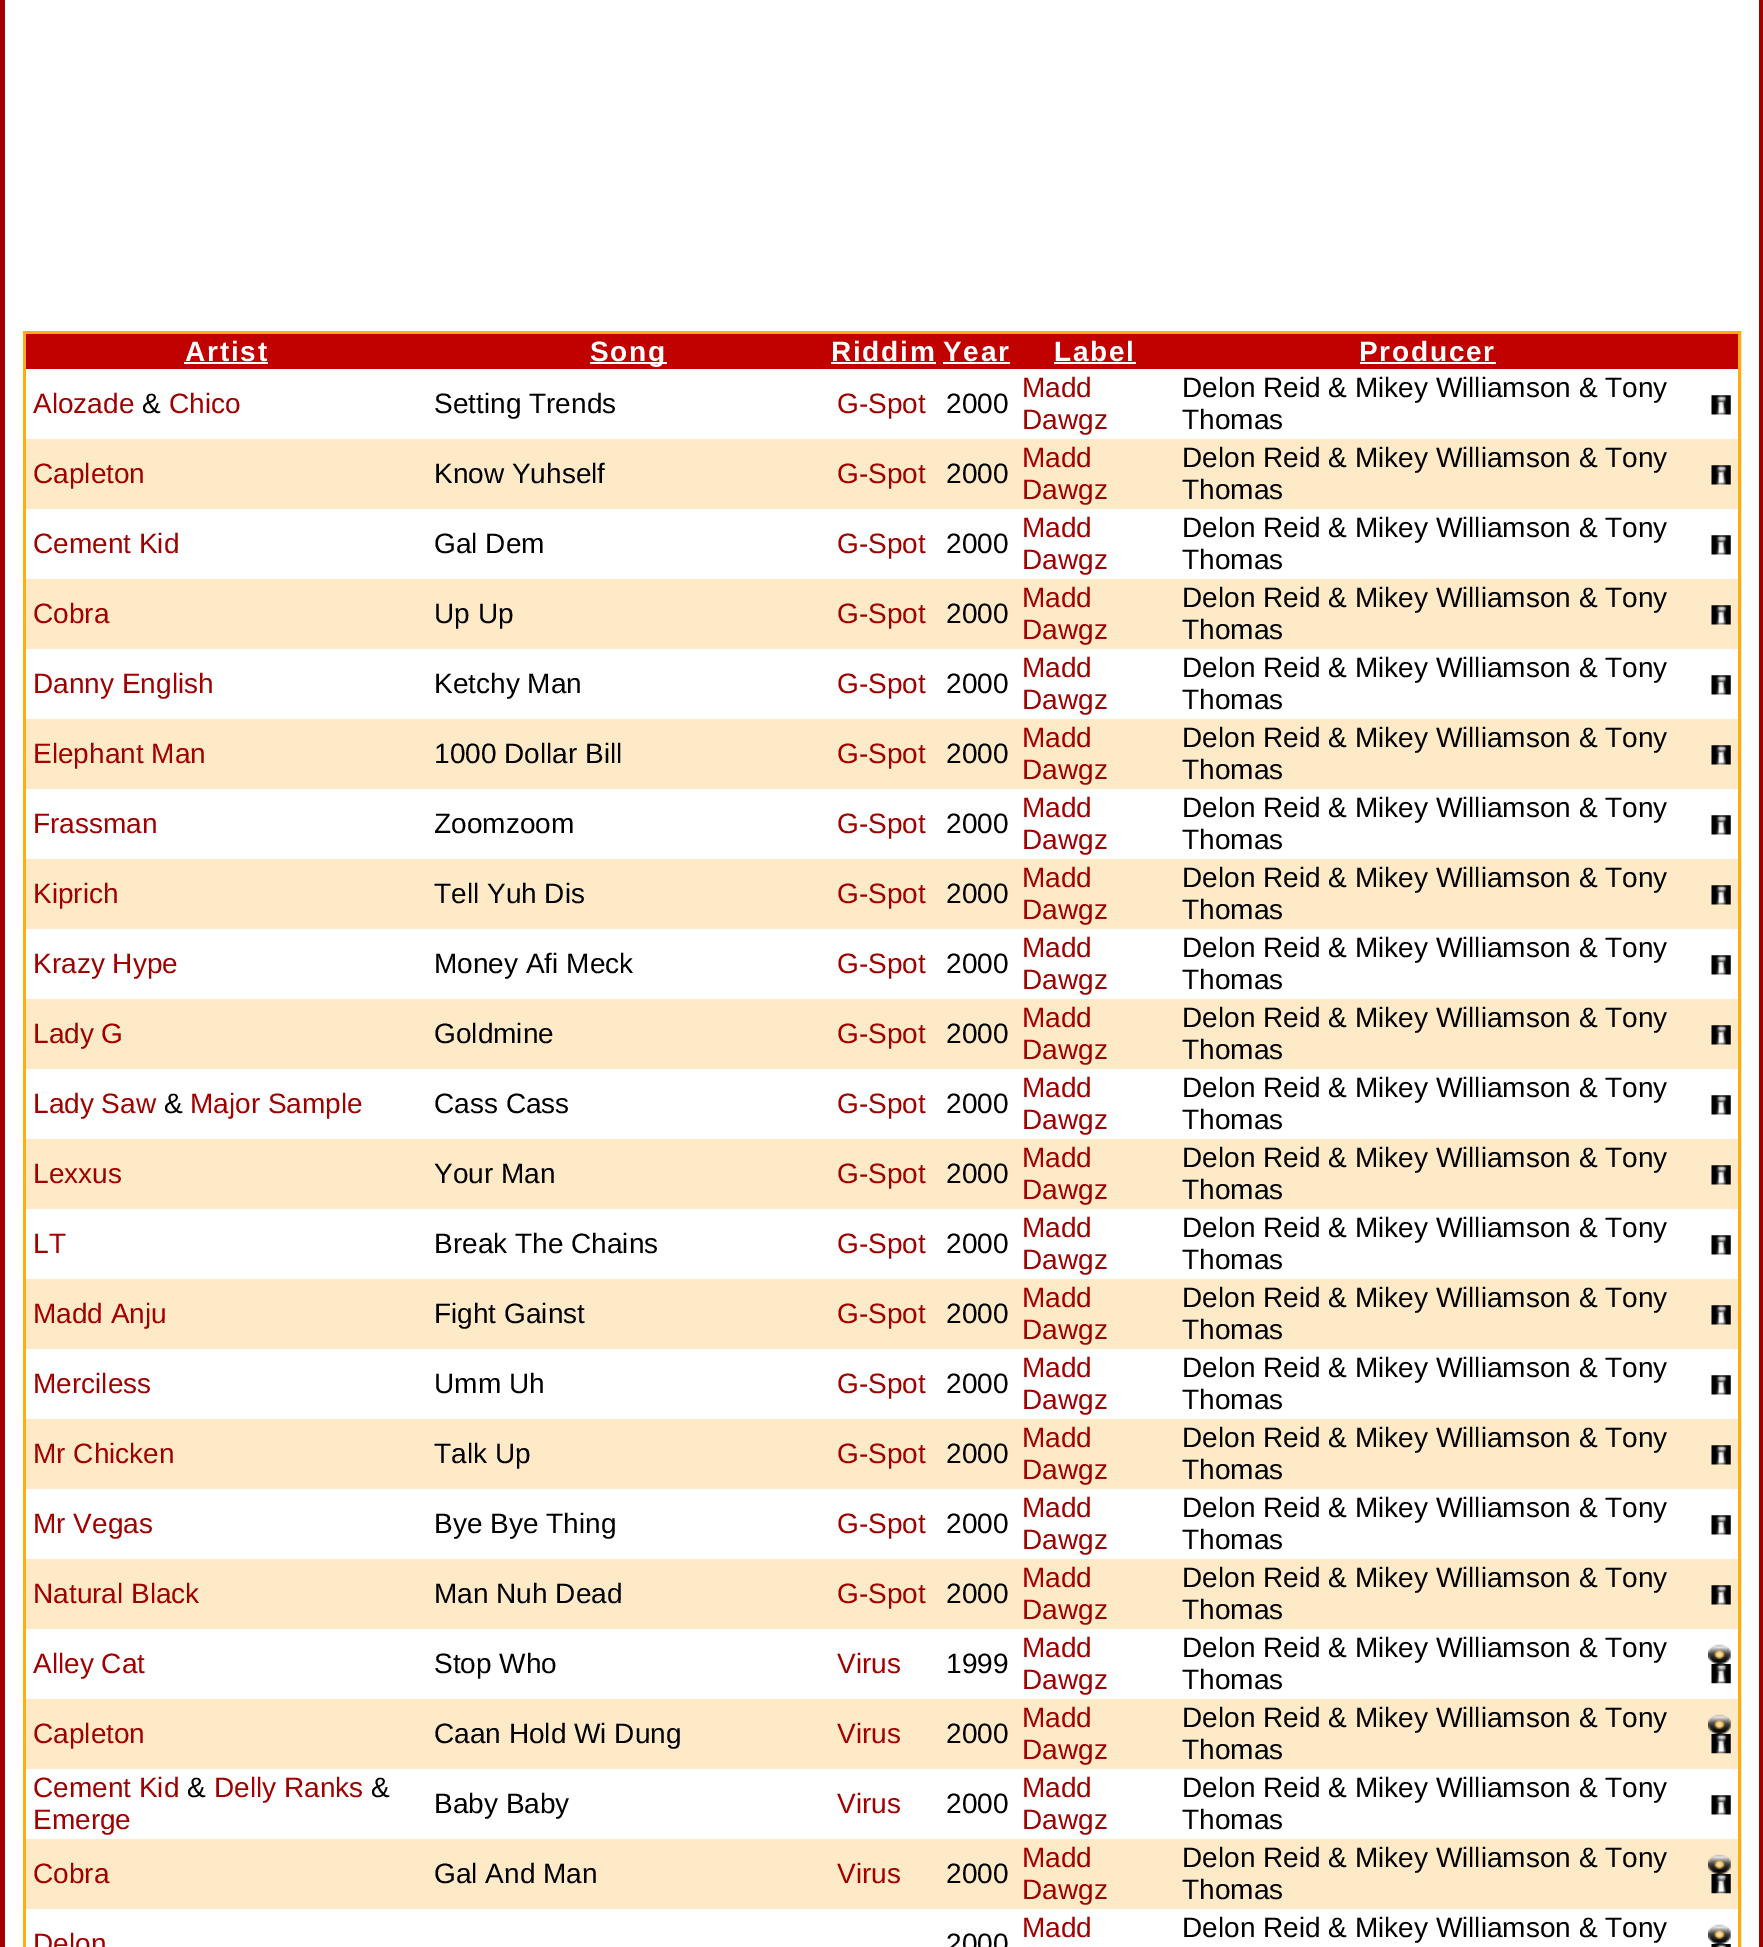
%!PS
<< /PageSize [1763 1947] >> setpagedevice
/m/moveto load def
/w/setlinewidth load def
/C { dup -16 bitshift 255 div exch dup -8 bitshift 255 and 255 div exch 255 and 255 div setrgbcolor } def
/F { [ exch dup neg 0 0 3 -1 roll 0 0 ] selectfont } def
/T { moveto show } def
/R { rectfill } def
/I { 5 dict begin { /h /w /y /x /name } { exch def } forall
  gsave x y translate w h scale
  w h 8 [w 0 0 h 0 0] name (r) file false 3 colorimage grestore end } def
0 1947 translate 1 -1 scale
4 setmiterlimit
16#FFFFFF C
0 0 1763 1947 R
16#A10000 C
1759 0 4 1947 R
0 0 5 1947 R
16#FFAC10 C
4 w
25 333 1714 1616 rectstroke
16#C10000 C
26 334 1712 35 R
/LiberationSans-Bold 28 F
16#FFFFFF C
185 361 m 1.75 0 (Artist) ashow
184 362 84 2 R
590 362 77 2 R
590 361 m 1.75 0 (Song) ashow
831 361 m 1.75 0 (Riddim) ashow
831 362 105 2 R
943 361 m 1.75 0 (Year) ashow
943 362 67 2 R
1054 361 m 1.75 0 (Label) ashow
1054 362 82 2 R
1359 361 m 1.75 0 (Producer) ashow
1360 362 136 2 R
26 369 1712 70 R
/LiberationSans-Regular 28 F
16#A10000 C
(Alozade) 33 413 T
16#000000 C
(&) 142 413 T
16#A10000 C
(Chico) 169 413 T
16#000000 C
(Setting Trends) 434 413 T
16#A10000 C
(G-Spot) 837 413 T
16#000000 C
(2000) 946 413 T
16#A10000 C
(Madd) 1022 397 T
(Dawgz) 1022 429 T
16#000000 C
(Delon Reid & Mikey Williamson & Tony) 1182 397 T
(Thomas) 1182 429 T
(1.rgb) 1711 395 20 20 I
16#FFEAC7 C
26 439 1712 70 R
16#A10000 C
(Capleton) 33 483 T
16#000000 C
(Know Yuhself) 434 483 T
16#A10000 C
(G-Spot) 837 483 T
16#000000 C
(2000) 946 483 T
16#A10000 C
(Madd) 1022 467 T
(Dawgz) 1022 499 T
16#000000 C
(Delon Reid & Mikey Williamson & Tony) 1182 467 T
(Thomas) 1182 499 T
(2.rgb) 1711 465 20 20 I
16#FFFFFF C
26 509 1712 70 R
16#A10000 C
(Cement Kid) 33 553 T
16#000000 C
(Gal Dem) 434 553 T
16#A10000 C
(G-Spot) 837 553 T
16#000000 C
(2000) 946 553 T
16#A10000 C
(Madd) 1022 537 T
(Dawgz) 1022 569 T
16#000000 C
(Delon Reid & Mikey Williamson & Tony) 1182 537 T
(Thomas) 1182 569 T
(1.rgb) 1711 535 20 20 I
16#FFEAC7 C
26 579 1712 70 R
16#A10000 C
(Cobra) 33 623 T
16#000000 C
(Up Up) 434 623 T
16#A10000 C
(G-Spot) 837 623 T
16#000000 C
(2000) 946 623 T
16#A10000 C
(Madd) 1022 607 T
(Dawgz) 1022 639 T
16#000000 C
(Delon Reid & Mikey Williamson & Tony) 1182 607 T
(Thomas) 1182 639 T
(2.rgb) 1711 605 20 20 I
16#FFFFFF C
26 649 1712 70 R
16#A10000 C
(Danny English) 33 693 T
16#000000 C
(Ketchy Man) 434 693 T
16#A10000 C
(G-Spot) 837 693 T
16#000000 C
(2000) 946 693 T
16#A10000 C
(Madd) 1022 677 T
(Dawgz) 1022 709 T
16#000000 C
(Delon Reid & Mikey Williamson & Tony) 1182 677 T
(Thomas) 1182 709 T
(1.rgb) 1711 675 20 20 I
16#FFEAC7 C
26 719 1712 70 R
16#A10000 C
(Elephant Man) 33 763 T
16#000000 C
(1000 Dollar Bill) 434 763 T
16#A10000 C
(G-Spot) 837 763 T
16#000000 C
(2000) 946 763 T
16#A10000 C
(Madd) 1022 747 T
(Dawgz) 1022 779 T
16#000000 C
(Delon Reid & Mikey Williamson & Tony) 1182 747 T
(Thomas) 1182 779 T
(2.rgb) 1711 745 20 20 I
16#FFFFFF C
26 789 1712 70 R
16#A10000 C
(Frassman) 33 833 T
16#000000 C
(Zoomzoom) 434 833 T
16#A10000 C
(G-Spot) 837 833 T
16#000000 C
(2000) 946 833 T
16#A10000 C
(Madd) 1022 817 T
(Dawgz) 1022 849 T
16#000000 C
(Delon Reid & Mikey Williamson & Tony) 1182 817 T
(Thomas) 1182 849 T
(1.rgb) 1711 815 20 20 I
16#FFEAC7 C
26 859 1712 70 R
16#A10000 C
(Kiprich) 33 903 T
16#000000 C
(Tell Yuh Dis) 434 903 T
16#A10000 C
(G-Spot) 837 903 T
16#000000 C
(2000) 946 903 T
16#A10000 C
(Madd) 1022 887 T
(Dawgz) 1022 919 T
16#000000 C
(Delon Reid & Mikey Williamson & Tony) 1182 887 T
(Thomas) 1182 919 T
(2.rgb) 1711 885 20 20 I
16#FFFFFF C
26 929 1712 70 R
16#A10000 C
(Krazy Hype) 33 973 T
16#000000 C
(Money Afi Meck) 434 973 T
16#A10000 C
(G-Spot) 837 973 T
16#000000 C
(2000) 946 973 T
16#A10000 C
(Madd) 1022 957 T
(Dawgz) 1022 989 T
16#000000 C
(Delon Reid & Mikey Williamson & Tony) 1182 957 T
(Thomas) 1182 989 T
(1.rgb) 1711 955 20 20 I
16#FFEAC7 C
26 999 1712 70 R
16#A10000 C
(Lady G) 33 1043 T
16#000000 C
(Goldmine) 434 1043 T
16#A10000 C
(G-Spot) 837 1043 T
16#000000 C
(2000) 946 1043 T
16#A10000 C
(Madd) 1022 1027 T
(Dawgz) 1022 1059 T
16#000000 C
(Delon Reid & Mikey Williamson & Tony) 1182 1027 T
(Thomas) 1182 1059 T
(2.rgb) 1711 1025 20 20 I
16#FFFFFF C
26 1069 1712 70 R
16#A10000 C
(Lady Saw) 33 1113 T
16#000000 C
(&) 164 1113 T
16#A10000 C
(Major Sample) 190 1113 T
16#000000 C
(Cass Cass) 434 1113 T
16#A10000 C
(G-Spot) 837 1113 T
16#000000 C
(2000) 946 1113 T
16#A10000 C
(Madd) 1022 1097 T
(Dawgz) 1022 1129 T
16#000000 C
(Delon Reid & Mikey Williamson & Tony) 1182 1097 T
(Thomas) 1182 1129 T
(1.rgb) 1711 1095 20 20 I
16#FFEAC7 C
26 1139 1712 70 R
16#A10000 C
(Lexxus) 33 1183 T
16#000000 C
(Your Man) 434 1183 T
16#A10000 C
(G-Spot) 837 1183 T
16#000000 C
(2000) 946 1183 T
16#A10000 C
(Madd) 1022 1167 T
(Dawgz) 1022 1199 T
16#000000 C
(Delon Reid & Mikey Williamson & Tony) 1182 1167 T
(Thomas) 1182 1199 T
(2.rgb) 1711 1165 20 20 I
16#FFFFFF C
26 1209 1712 70 R
16#A10000 C
(LT) 33 1253 T
16#000000 C
(Break The Chains) 434 1253 T
16#A10000 C
(G-Spot) 837 1253 T
16#000000 C
(2000) 946 1253 T
16#A10000 C
(Madd) 1022 1237 T
(Dawgz) 1022 1269 T
16#000000 C
(Delon Reid & Mikey Williamson & Tony) 1182 1237 T
(Thomas) 1182 1269 T
(1.rgb) 1711 1235 20 20 I
16#FFEAC7 C
26 1279 1712 70 R
16#A10000 C
(Madd Anju) 33 1323 T
16#000000 C
(Fight Gainst) 434 1323 T
16#A10000 C
(G-Spot) 837 1323 T
16#000000 C
(2000) 946 1323 T
16#A10000 C
(Madd) 1022 1307 T
(Dawgz) 1022 1339 T
16#000000 C
(Delon Reid & Mikey Williamson & Tony) 1182 1307 T
(Thomas) 1182 1339 T
(2.rgb) 1711 1305 20 20 I
16#FFFFFF C
26 1349 1712 70 R
16#A10000 C
(Merciless) 33 1393 T
16#000000 C
(Umm Uh) 434 1393 T
16#A10000 C
(G-Spot) 837 1393 T
16#000000 C
(2000) 946 1393 T
16#A10000 C
(Madd) 1022 1377 T
(Dawgz) 1022 1409 T
16#000000 C
(Delon Reid & Mikey Williamson & Tony) 1182 1377 T
(Thomas) 1182 1409 T
(1.rgb) 1711 1375 20 20 I
16#FFEAC7 C
26 1419 1712 70 R
16#A10000 C
(Mr Chicken) 33 1463 T
16#000000 C
(Talk Up) 434 1463 T
16#A10000 C
(G-Spot) 837 1463 T
16#000000 C
(2000) 946 1463 T
16#A10000 C
(Madd) 1022 1447 T
(Dawgz) 1022 1479 T
16#000000 C
(Delon Reid & Mikey Williamson & Tony) 1182 1447 T
(Thomas) 1182 1479 T
(2.rgb) 1711 1445 20 20 I
16#FFFFFF C
26 1489 1712 70 R
16#A10000 C
(Mr Vegas) 33 1533 T
16#000000 C
(Bye Bye Thing) 434 1533 T
16#A10000 C
(G-Spot) 837 1533 T
16#000000 C
(2000) 946 1533 T
16#A10000 C
(Madd) 1022 1517 T
(Dawgz) 1022 1549 T
16#000000 C
(Delon Reid & Mikey Williamson & Tony) 1182 1517 T
(Thomas) 1182 1549 T
(3.rgb) 1711 1515 20 20 I
16#FFEAC7 C
26 1559 1712 70 R
16#A10000 C
(Natural Black) 33 1603 T
16#000000 C
(Man Nuh Dead) 434 1603 T
16#A10000 C
(G-Spot) 837 1603 T
16#000000 C
(2000) 946 1603 T
16#A10000 C
(Madd) 1022 1587 T
(Dawgz) 1022 1619 T
16#000000 C
(Delon Reid & Mikey Williamson & Tony) 1182 1587 T
(Thomas) 1182 1619 T
(2.rgb) 1711 1585 20 20 I
16#FFFFFF C
26 1629 1712 70 R
16#A10000 C
(Alley Cat) 33 1673 T
16#000000 C
(Stop Who) 434 1673 T
16#A10000 C
(Virus) 837 1673 T
16#000000 C
(1999) 946 1673 T
16#A10000 C
(Madd) 1022 1657 T
(Dawgz) 1022 1689 T
16#000000 C
(Delon Reid & Mikey Williamson & Tony) 1182 1657 T
(Thomas) 1182 1689 T
(4.rgb) 1708 1644 23 20 I
(5.rgb) 1711 1664 20 20 I
16#FFEAC7 C
26 1699 1712 70 R
16#A10000 C
(Capleton) 33 1743 T
16#000000 C
(Caan Hold Wi Dung) 434 1743 T
16#A10000 C
(Virus) 837 1743 T
16#000000 C
(2000) 946 1743 T
16#A10000 C
(Madd) 1022 1727 T
(Dawgz) 1022 1759 T
16#000000 C
(Delon Reid & Mikey Williamson & Tony) 1182 1727 T
(Thomas) 1182 1759 T
(6.rgb) 1708 1714 23 20 I
(7.rgb) 1711 1734 20 20 I
16#FFFFFF C
26 1769 1712 70 R
16#A10000 C
(Cement Kid) 33 1797 T
16#000000 C
(&) 187 1797 T
16#A10000 C
(Delly Ranks) 214 1797 T
16#000000 C
(&) 371 1797 T
16#A10000 C
(Emerge) 33 1829 T
16#000000 C
(Baby Baby) 434 1813 T
16#A10000 C
(Virus) 837 1813 T
16#000000 C
(2000) 946 1813 T
16#A10000 C
(Madd) 1022 1797 T
(Dawgz) 1022 1829 T
16#000000 C
(Delon Reid & Mikey Williamson & Tony) 1182 1797 T
(Thomas) 1182 1829 T
(1.rgb) 1711 1795 20 20 I
16#FFEAC7 C
26 1839 1712 70 R
16#A10000 C
(Cobra) 33 1883 T
16#000000 C
(Gal And Man) 434 1883 T
16#A10000 C
(Virus) 837 1883 T
16#000000 C
(2000) 946 1883 T
16#A10000 C
(Madd) 1022 1867 T
(Dawgz) 1022 1899 T
16#000000 C
(Delon Reid & Mikey Williamson & Tony) 1182 1867 T
(Thomas) 1182 1899 T
(6.rgb) 1708 1854 23 20 I
(7.rgb) 1711 1874 20 20 I
16#FFFFFF C
26 1909 1712 38 R
16#A10000 C
(Delon) 33 1953 T
16#000000 C
(2000) 946 1953 T
16#A10000 C
(Madd) 1022 1937 T
16#000000 C
(Delon Reid & Mikey Williamson & Tony) 1182 1937 T
(4.rgb) 1708 1924 23 20 I
(8.rgb) 1711 1944 20 3 I
showpage
